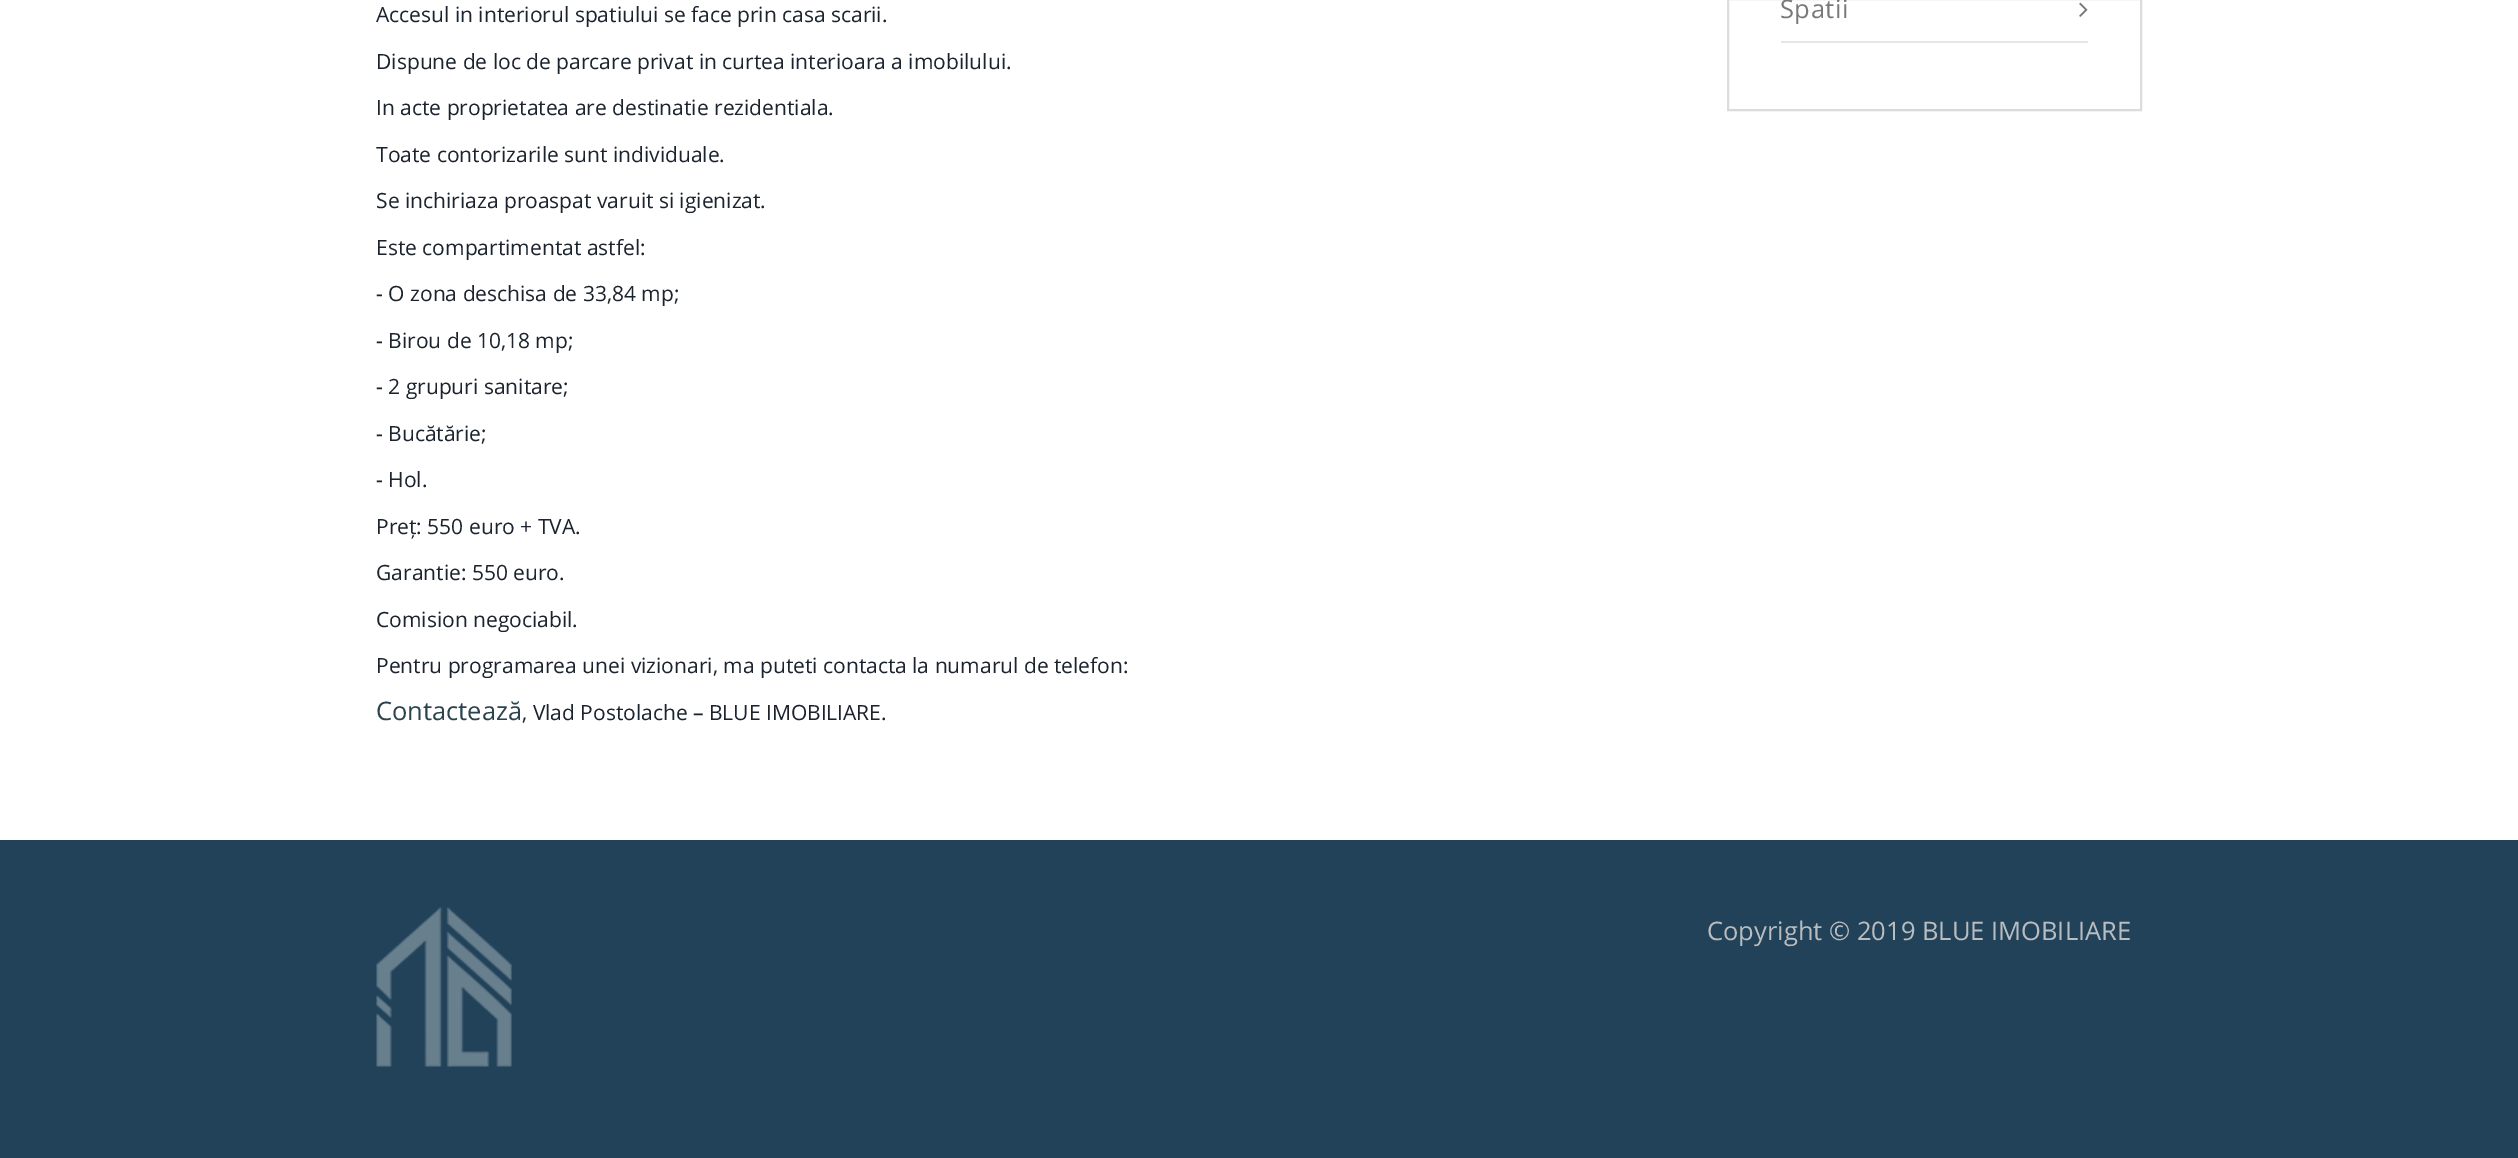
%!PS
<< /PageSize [2518 1158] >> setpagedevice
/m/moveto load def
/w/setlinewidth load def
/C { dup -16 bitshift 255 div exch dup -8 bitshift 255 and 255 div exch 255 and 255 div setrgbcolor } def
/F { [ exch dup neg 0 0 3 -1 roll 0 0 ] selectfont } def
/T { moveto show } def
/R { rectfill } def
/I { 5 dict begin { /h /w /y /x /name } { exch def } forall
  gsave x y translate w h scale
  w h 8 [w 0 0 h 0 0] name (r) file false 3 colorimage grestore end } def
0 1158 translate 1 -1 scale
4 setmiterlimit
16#FFFFFF C
0 0 2518 1158 R
/OpenSans-Regular 21 F
16#1B232E C
(Accesul in interiorul spatiului se face prin casa scarii.) 376 22 T
(Dispune de loc de parcare privat in curtea interioara a imobilului.) 376 69 T
(In acte proprietatea are destinatie rezidentiala.) 376 115 T
(Toate contorizarile sunt individuale.) 376 162 T
(Se inchiriaza proaspat varuit si igienizat.) 376 208 T
(Este compartimentat astfel:) 376 255 T
(- O zona deschisa de 33,84 mp;) 376 301 T
(- Birou de 10,18 mp;) 376 348 T
(- 2 grupuri sanitare;) 376 394 T
(- Bucătărie;) 376 441 T
(- Hol.) 376 487 T
(Preț: 550 euro + TVA.) 376 534 T
(Garantie: 550 euro.) 376 580 T
(Comision negociabil.) 376 627 T
(Pentru programarea unei vizionari, ma puteti contacta la numarul de telefon:) 376 673 T
/OpenSans-Regular 25.5 F
16#2A434E C
(Contactează) 376 720 T
/OpenSans-Regular 21 F
16#1B232E C
(, Vlad Postolache – BLUE IMOBILIARE.) 522 720 T
16#DCDCDC C
2 w
1728 -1 413 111 rectstroke
16#E6E6E6 C
1781 41 307 2 R
/OpenSans-Regular 25.5 F
16#797979 C
1780 18 m .5 0 (Spatii) ashow
(1.rgb) 2079 2 9 15 I
16#214259 C
0 840 2518 318 R
(2.rgb) 376 907 136 160 I
16#B9BDBF C
(Copyright © 2019 BLUE IMOBILIARE) 1707 940 T
showpage
